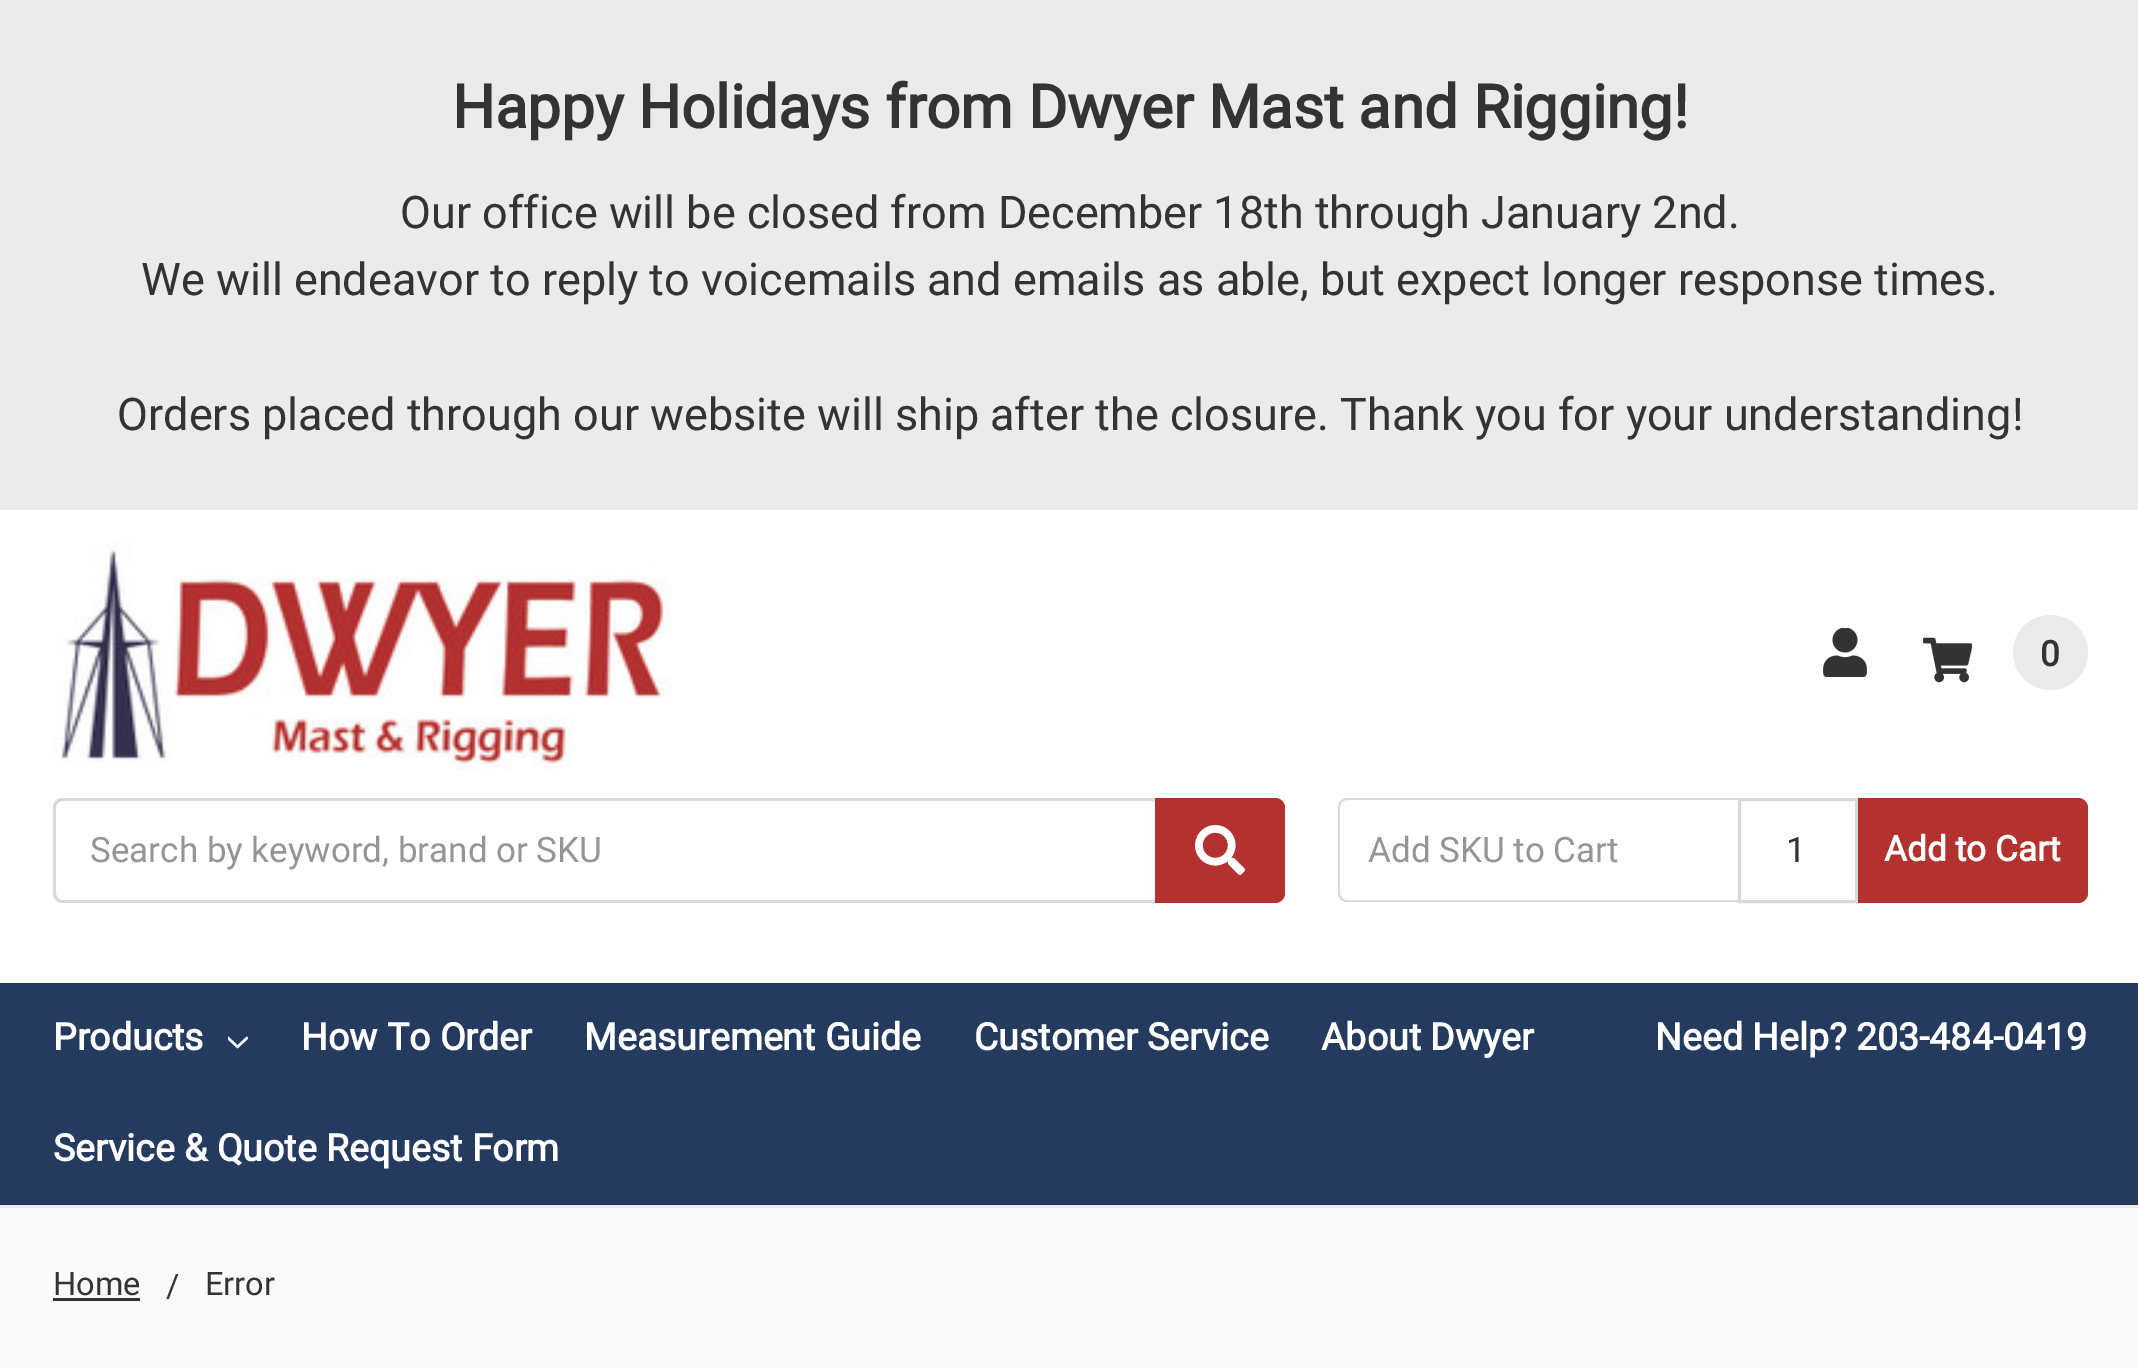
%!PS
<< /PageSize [2138 1368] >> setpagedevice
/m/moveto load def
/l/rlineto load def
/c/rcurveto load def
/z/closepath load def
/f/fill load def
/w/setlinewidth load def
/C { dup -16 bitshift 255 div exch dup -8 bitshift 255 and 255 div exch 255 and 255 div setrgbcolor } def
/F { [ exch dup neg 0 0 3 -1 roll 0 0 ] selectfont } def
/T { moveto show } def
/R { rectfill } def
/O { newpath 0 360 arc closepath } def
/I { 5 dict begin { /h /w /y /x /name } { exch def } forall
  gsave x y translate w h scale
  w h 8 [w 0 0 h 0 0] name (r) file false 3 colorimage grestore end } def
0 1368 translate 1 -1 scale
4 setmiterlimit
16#FAFAFA C
0 0 2138 1368 R
16#EBEBEB C
0 0 2138 510 R
/Roboto-Bold 60 F
16#333333 C
(Happy Holidays from Dwyer Mast and Rigging!) 452 128 T
/Roboto-Regular 45 F
(Our office will be closed from December 18th through January 2nd.) 400 228 T
(We will endeavor to reply to voicemails and emails as able, but expect longer response times.) 141 295 T
(Orders placed through our website will ship after the closure. Thank you for your understanding!) 117 430 T
16#FFFFFF C
0 510 2138 473 R
16#EBEBEB C
0 1205 2138 3 R
(1.rgb) 53 541 620 229 I
(2.rgb) 1823 628 44 49 I
(3.rgb) 1923 637 49 46 I
2050.5 652.5 37.5 O f
/Roboto-Bold 35 F
16#333333 C
(0) 2040 666 T
16#D9D9D9 C
63 798 m -6 0 -10 4 -10 10 c 0 85 l 0 6 4 10 10 10 c 1212 0 l 6 0 10 -4 10 -10 c 0 -85 l 0 -6 -4 -10 -10 -10 c z 63 801 m -4 0 -7 3 -7 7 c 0 85 l 0 4 3 7 7 7 c 1219 0 l 0 -99 l z eofill
/Roboto-Regular 35 F
16#959595 C
(Search by keyword, brand or SKU) 90 862 T
16#B33230 C
1155 798 m 120 0 l 5.5 0 10 4.5 10 10 c 0 85 l 0 5.5 -4.5 10 -10 10 c -120 0 l z f
(4.rgb) 1195 825 50 50 I
16#D9D9D9 C
1347 800 m 391 0 l 0 -2 l -390 0 l -6 0 -10 4 -10 10 c 0 85 l 0 5 4 9 9 9 c 391 0 l 0 -2 l -391 0 l -4 0 -7 -3 -7 -7 c 0 -86 l 0 -4 3 -7 7 -7 c z f
16#959595 C
(Add SKU to Cart) 1368 862 T
16#D9D9D9 C
3 w
1739.5 799.5 117 102 rectstroke
16#333333 C
(1) 1786 862 T
16#B33230 C
1858 798 m 220 0 l 5.5 0 10 4.5 10 10 c 0 85 l 0 5.5 -4.5 10 -10 10 c -220 0 l z f
/Roboto-Bold 35 F
16#FFFFFF C
(Add to Cart) 1884 861 T
16#253A5F C
0 983 2138 222 R
/Roboto-Bold 37.5 F
16#FFFFFF C
(Products) 53 1050 T
(5.rgb) 228 1036 20 13 I
(How To Order) 301 1050 T
(Measurement Guide) 584 1050 T
(Customer Service) 974 1050 T
(About Dwyer) 1321 1050 T
(Service & Quote Request Form) 53 1161 T
(Need Help? 203-484-0419) 1655 1050 T
/Roboto-Regular 32.5 F
16#333333 C
(Home) 53 1295 T
53 1298 87 3 R
(/) 166 1297 T
(Error) 205 1295 T
showpage
